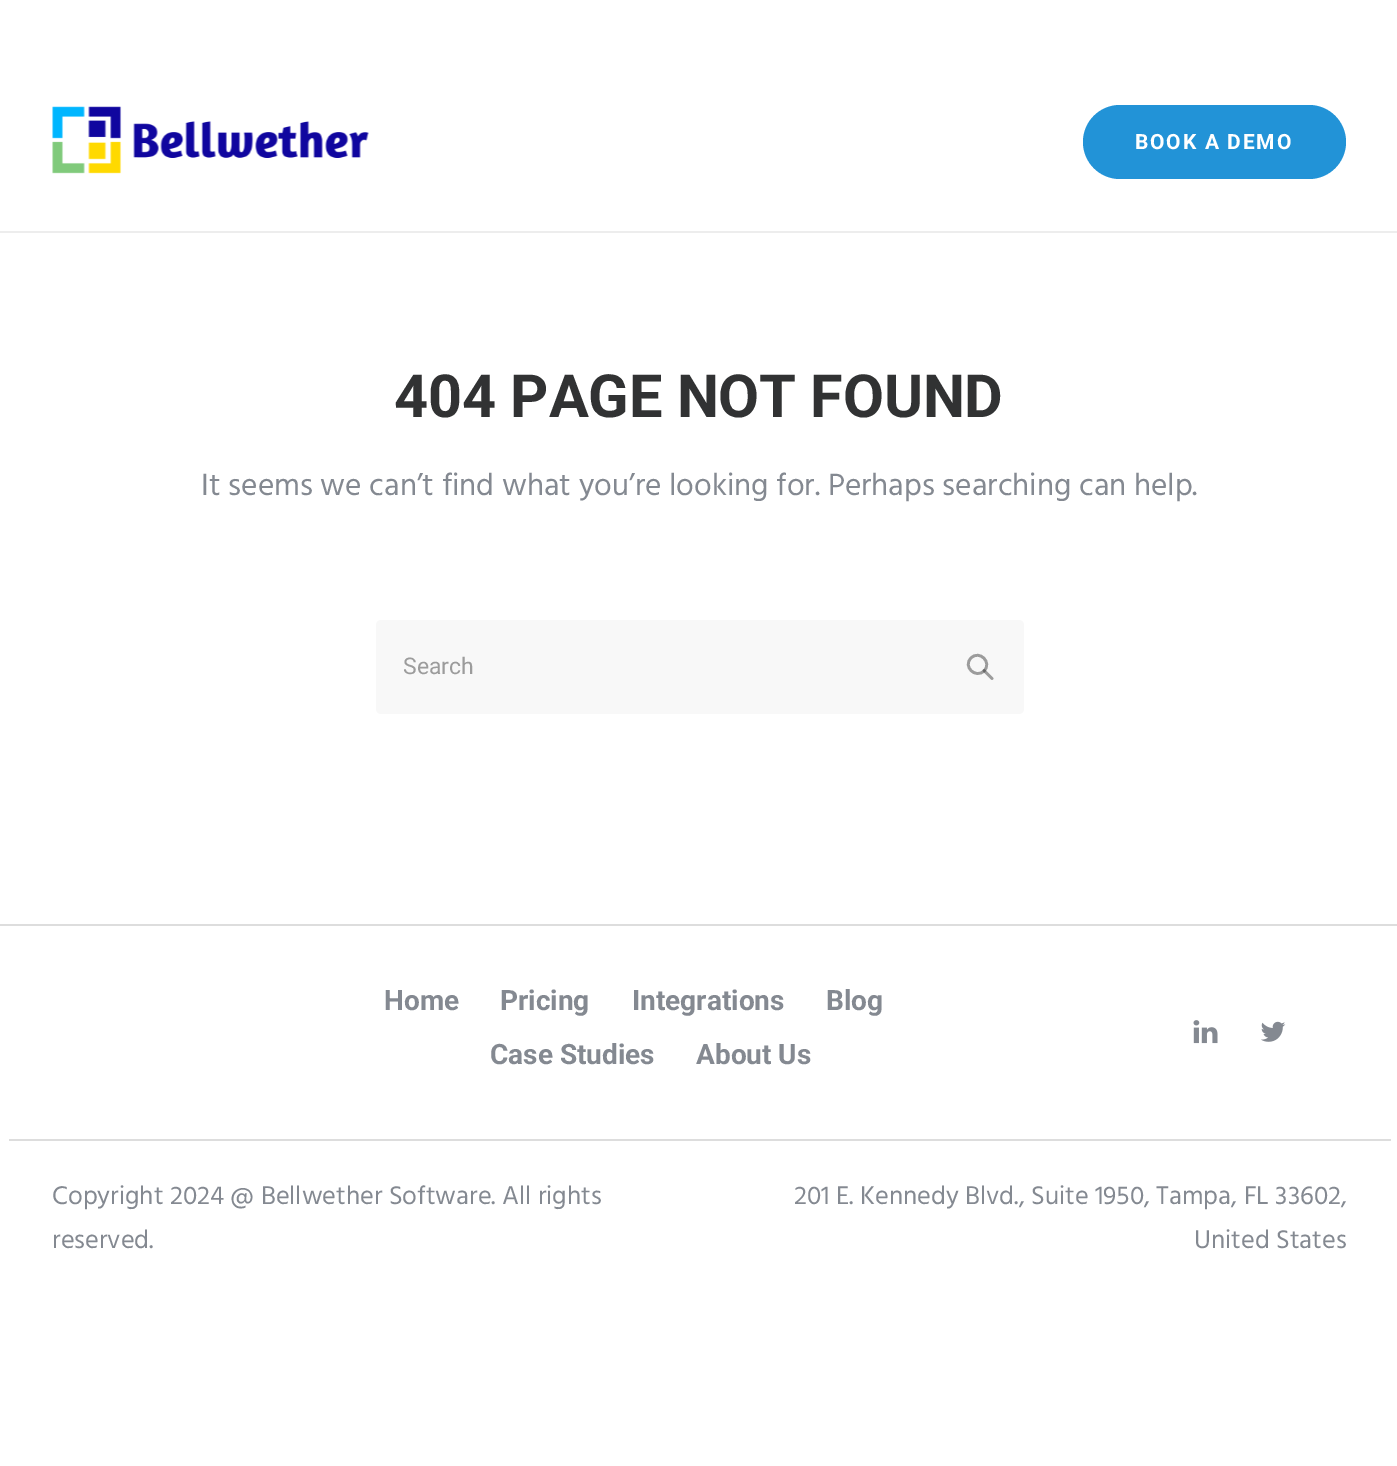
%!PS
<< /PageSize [1397 1466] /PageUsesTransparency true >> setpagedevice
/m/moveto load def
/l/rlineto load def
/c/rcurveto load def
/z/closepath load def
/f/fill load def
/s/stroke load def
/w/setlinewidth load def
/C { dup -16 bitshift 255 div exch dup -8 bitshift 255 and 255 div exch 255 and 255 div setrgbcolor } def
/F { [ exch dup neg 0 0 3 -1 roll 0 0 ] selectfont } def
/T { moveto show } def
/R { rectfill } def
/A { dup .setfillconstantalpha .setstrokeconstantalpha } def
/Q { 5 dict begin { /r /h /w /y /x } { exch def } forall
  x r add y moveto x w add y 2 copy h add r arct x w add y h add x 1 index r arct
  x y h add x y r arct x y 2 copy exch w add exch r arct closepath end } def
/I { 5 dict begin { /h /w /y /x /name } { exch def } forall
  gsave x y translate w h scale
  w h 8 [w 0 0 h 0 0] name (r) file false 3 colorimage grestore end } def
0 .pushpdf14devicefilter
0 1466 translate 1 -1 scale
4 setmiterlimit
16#FFFFFF C
0 0 1397 1466 R
16#EDEDED C
0 231 1397 2 R
(1.rgb) 52 106 317 68 I
16#2293D7 C
1083 105 263 74 37 Q f
/Roboto-Bold 21 F
16#FFFFFF C
1135 149 m 1.75 0 (BOOK A DEMO) ashow
/Roboto-Bold 59.5 F
16#313233 C
394 417 m -.2 0 (404 PAGE NOT FOUND) ashow
/Hind-Regular 31.5 F
16#848991 C
(It seems we can’t find what you’re looking for. Perhaps searching can help.) 201 495 T
16#F8F8F8 C
376 620 648 94 5 Q f
/Roboto-Regular 23 F
16#9C9C9C C
(Search) 403 674 T
2.7 w
971 658 m 8.5 -8.5 21.5 4.5 13 13 c -8.5 8 -21.5 -4.5 -13 -13 c z s
0.43 A
16#222222 C
1 setlinecap
984 670.5 m 8 8 l s
1 A
16#DDDDDD C
0 924 1397 2 R
/Roboto-Bold 28 F
16#848991 C
(Home) 384 1010 T
(Pricing) 500 1010 T
(Integrations) 632 1010 T
(Blog) 826 1010 T
(Case Studies) 490 1064 T
(About Us) 696 1064 T
(2.rgb) 1193 1020 25 24 I
(3.rgb) 1261 1021 25 21 I
16#DDDDDD C
9 1139 1382 2 R
/Hind-Regular 26.25 F
16#848991 C
(Copyright 2024 @ Bellwether Software. All rights) 52 1204 T
(reserved.) 52 1248 T
(201 E. Kennedy Blvd., Suite 1950, Tampa, FL 33602,) 794 1204 T
(United States) 1194 1248 T
.poppdf14devicefilter showpage
